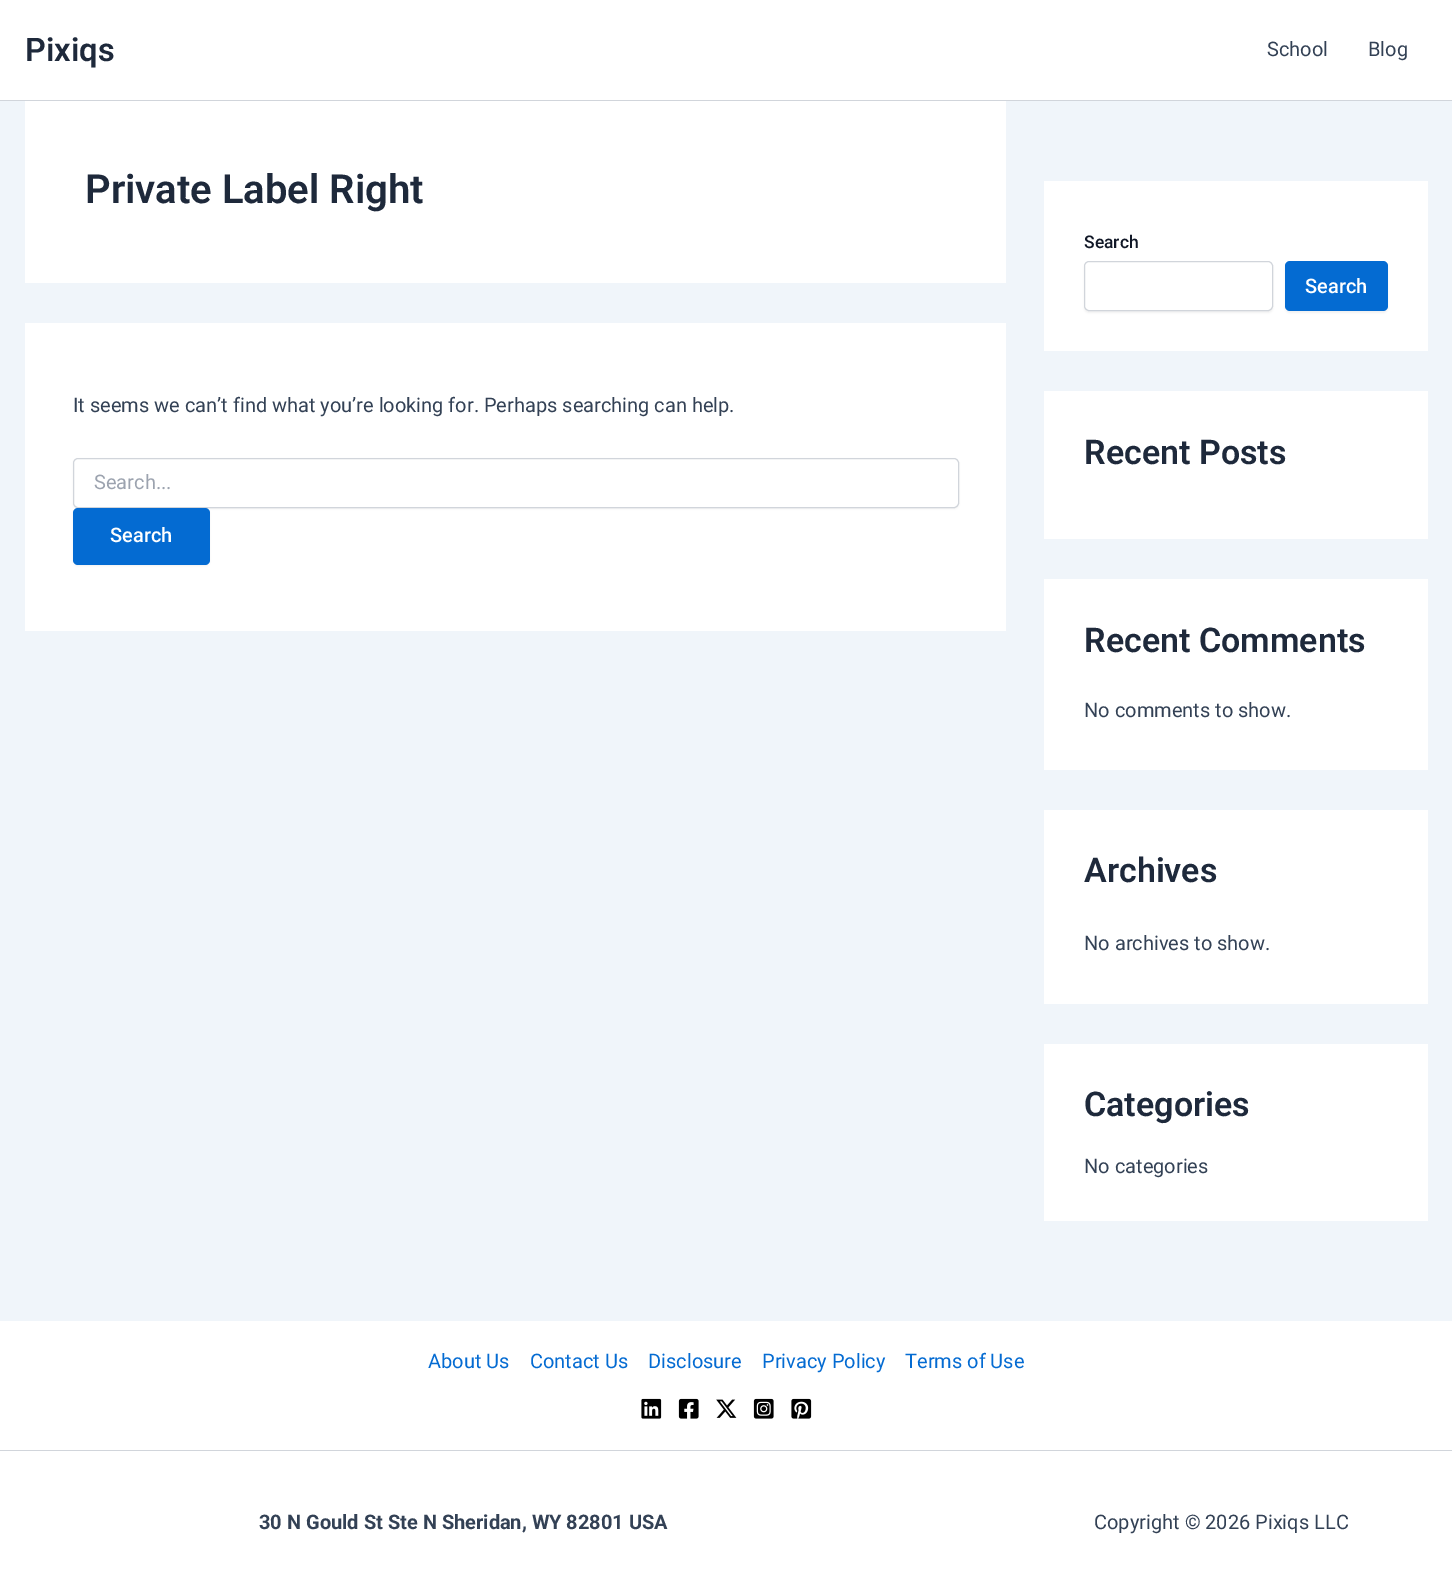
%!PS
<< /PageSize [1452 1596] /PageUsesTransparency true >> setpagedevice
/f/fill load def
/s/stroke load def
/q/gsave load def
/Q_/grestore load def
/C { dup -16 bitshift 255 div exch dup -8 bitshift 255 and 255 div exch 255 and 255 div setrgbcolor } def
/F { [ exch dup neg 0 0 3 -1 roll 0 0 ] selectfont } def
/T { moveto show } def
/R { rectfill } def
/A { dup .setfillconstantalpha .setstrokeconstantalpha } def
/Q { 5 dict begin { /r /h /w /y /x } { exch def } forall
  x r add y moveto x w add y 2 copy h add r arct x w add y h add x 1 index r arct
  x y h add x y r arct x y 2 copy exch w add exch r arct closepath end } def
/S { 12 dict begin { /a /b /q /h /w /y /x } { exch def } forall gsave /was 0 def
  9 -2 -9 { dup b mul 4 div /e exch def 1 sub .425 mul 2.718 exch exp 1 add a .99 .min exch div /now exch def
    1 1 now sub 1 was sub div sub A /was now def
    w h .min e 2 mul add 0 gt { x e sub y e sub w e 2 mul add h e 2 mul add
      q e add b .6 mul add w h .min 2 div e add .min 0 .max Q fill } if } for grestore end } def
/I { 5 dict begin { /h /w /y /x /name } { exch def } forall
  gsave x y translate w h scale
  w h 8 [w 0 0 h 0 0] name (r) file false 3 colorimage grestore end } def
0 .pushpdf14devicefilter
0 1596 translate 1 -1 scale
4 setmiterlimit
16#F0F5FA C
0 0 1452 1596 R
16#FFFFFF C
0 0 1452 100 R
16#D1D5DB C
0 100 1452 1 R
/Roboto-SemiBold 32.5 F
16#1E293B C
(Pixiqs) 25 61 T
/Roboto-Regular 20 F
16#334155 C
(School) 1267 56 T
(Blog) 1368 56 T
16#FFFFFF C
25 101 981 182 R
/Roboto-SemiBold 40 F
16#1E293B C
(Private Label Right) 85 203 T
16#FFFFFF C
25 323 981 308 R
/Roboto-Regular 20 F
16#334155 C
(It seems we can’t find what you’re looking for. Perhaps searching can help.) 73 412 T
16#000000 C
73 459 886 50 5 1 .05 S
16#FFFFFF C
73.5 458.5 885 49 4.5 Q q f Q_
16#D1D5DB C
s
16#9CA3AF C
(Search...) 94 489 T
16#000000 C
73 509 137 57 5 1 .05 S
16#046BD2 C
73 508 137 57 5 Q f
/Roboto-Medium 20 F
16#FFFFFF C
(Search) 110 542 T
1044 181 384 170 R
/Roboto-Medium 17.5 F
16#111827 C
(Search) 1084 248 T
16#000000 C
1084 263 189 50 5 1 .05 S
16#FFFFFF C
1084.5 261.5 188 49 4.5 Q q f Q_
16#D1D5DB C
s
16#000000 C
1285 263 103 50 5 1 .05 S
16#046BD2 C
1285 261 103 50 5 Q f
/Roboto-Medium 20 F
16#FFFFFF C
(Search) 1305 293 T
1044 391 384 148 R
/Roboto-SemiBold 34 F
16#1E293B C
(Recent Posts) 1084 464 T
16#FFFFFF C
1044 579 384 191 R
16#1E293B C
(Recent Comments) 1084 652 T
/Roboto-Regular 20 F
16#334155 C
(No comments to show.) 1084 717 T
16#FFFFFF C
1044 810 384 194 R
/Roboto-SemiBold 34 F
16#1E293B C
(Archives) 1084 882 T
/Roboto-Regular 20 F
16#334155 C
(No archives to show.) 1084 950 T
16#FFFFFF C
1044 1044 384 177 R
/Roboto-SemiBold 34 F
16#1E293B C
(Categories) 1084 1116 T
/Roboto-Regular 20 F
16#334155 C
(No categories) 1084 1173 T
16#FFFFFF C
0 1321 1452 129 R
16#046BD2 C
(About Us) 428 1368 T
(Contact Us) 530 1368 T
(Disclosure) 648 1368 T
(Privacy Policy) 762 1368 T
(Terms of Use) 905 1368 T
(1.rgb) 641 1398 21 21 I
(2.rgb) 678 1398 21 21 I
(3.rgb) 716 1399 21 19 I
(4.rgb) 753 1398 21 21 I
(5.rgb) 791 1398 21 21 I
16#FFFFFF C
0 1451 1452 145 R
16#D1D5DB C
0 1450 1452 1 R
/Roboto-Bold 20 F
16#334155 C
(30 N Gould St Ste N Sheridan, WY 82801 USA) 259 1529 T
/Roboto-Regular 20 F
(Copyright © 2026 Pixiqs LLC) 1094 1529 T
.poppdf14devicefilter showpage
